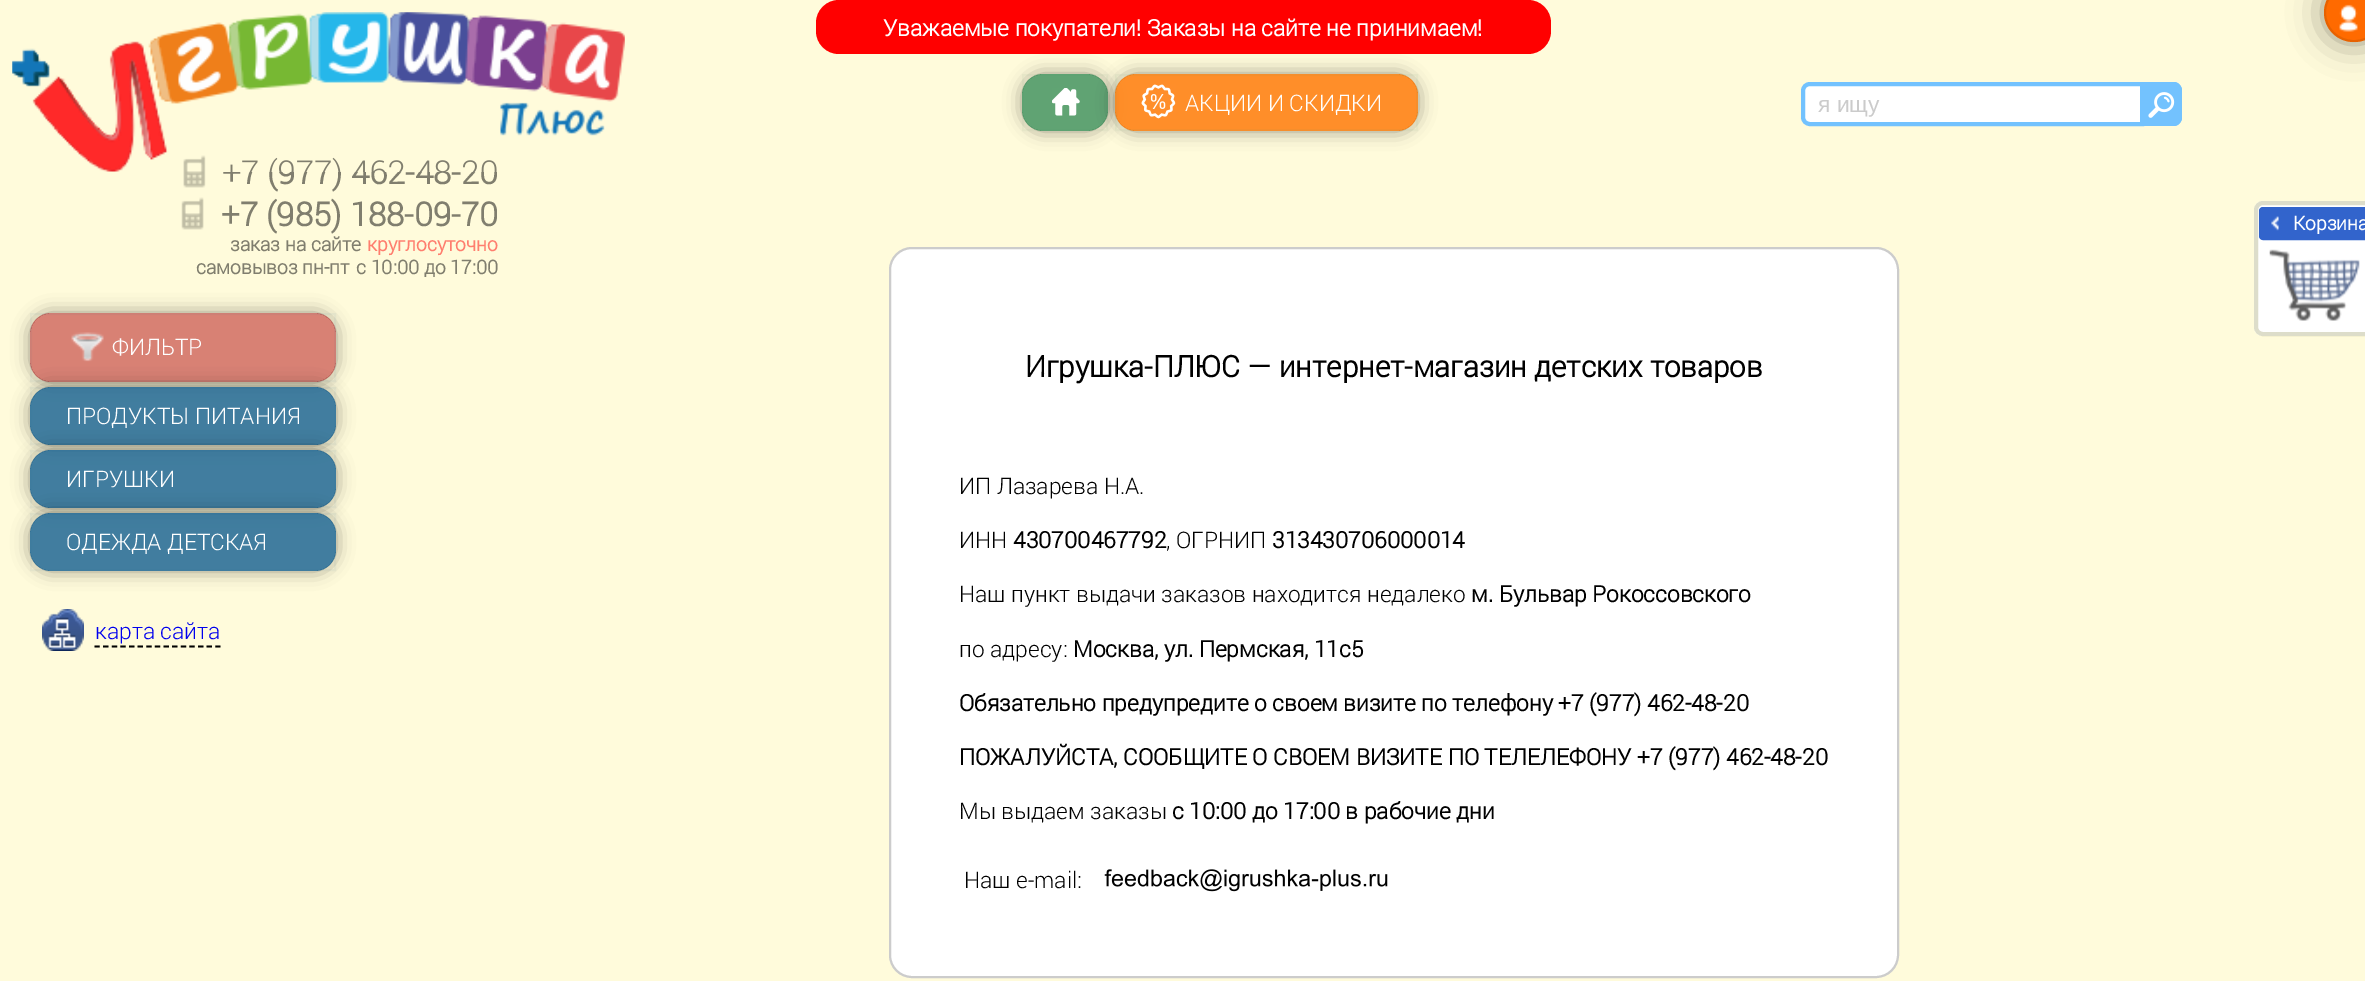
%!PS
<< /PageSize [2365 981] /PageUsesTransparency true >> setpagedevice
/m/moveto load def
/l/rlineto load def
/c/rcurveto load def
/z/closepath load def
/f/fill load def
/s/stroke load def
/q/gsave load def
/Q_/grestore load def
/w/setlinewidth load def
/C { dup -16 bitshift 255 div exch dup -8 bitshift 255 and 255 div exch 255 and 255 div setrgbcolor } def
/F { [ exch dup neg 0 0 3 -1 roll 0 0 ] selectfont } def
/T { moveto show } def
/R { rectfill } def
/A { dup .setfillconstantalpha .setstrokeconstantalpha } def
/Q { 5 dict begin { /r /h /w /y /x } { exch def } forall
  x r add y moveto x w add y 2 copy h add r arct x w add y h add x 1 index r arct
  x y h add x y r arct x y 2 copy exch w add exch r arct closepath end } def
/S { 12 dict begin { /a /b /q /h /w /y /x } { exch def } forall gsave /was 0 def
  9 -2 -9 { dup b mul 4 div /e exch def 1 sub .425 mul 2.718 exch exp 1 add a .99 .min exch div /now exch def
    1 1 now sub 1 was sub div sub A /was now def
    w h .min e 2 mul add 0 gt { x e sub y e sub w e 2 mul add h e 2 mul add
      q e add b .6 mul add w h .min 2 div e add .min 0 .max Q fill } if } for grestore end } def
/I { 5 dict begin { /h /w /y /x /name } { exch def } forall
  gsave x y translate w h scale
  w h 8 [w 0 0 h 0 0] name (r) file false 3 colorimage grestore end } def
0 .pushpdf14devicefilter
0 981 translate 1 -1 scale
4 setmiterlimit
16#FFFBDB C
0 0 2365 981 R
(6.rgb) 183 155 23 33 I
/Roboto-Bold 33 F
16#807E6E C
(+7 \(977\) 462-48-20) 222 184 T
(1.rgb) 12 12 613 160 I
16#FF0000 C
816 0 735 54 23 Q f
/Roboto-Bold 22.75 F
16#FFFFFF C
(Уважаемые покупатели! Заказы на сайте не принимаем!) 883 36 T
16#000000 C
2324 -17 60 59 29.5 17.5 .4 S
16#FF6A00 C
2324 -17 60 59 29.5 Q f
(2.rgb) 2339 4 19 28 I
0.1 A
16#141400 C
2 w
2325 -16 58 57 28.5 Q s
q
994 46 m 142 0 l 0 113 l -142 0 l z 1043 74 m 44 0 l 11.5 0 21 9.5 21 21 c 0 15 l 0 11.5 -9.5 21 -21 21 c -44 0 l -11.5 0 -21 -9.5 -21 -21 c 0 -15 l 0 -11.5 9.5 -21 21 -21 c z eoclip newpath
1 A
16#000000 C
1022 74 86 57 21 9 .4 S
Q_
0.81 A
16#3B8F5B C
1022 74 86 57 21 Q f
0.05 A
1023 75 84 55 rectstroke
1 A
(3.rgb) 1052 88 28 28 I
q
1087 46 m 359 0 l 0 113 l -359 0 l z 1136 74 m 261 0 l 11.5 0 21 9.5 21 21 c 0 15 l 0 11.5 -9.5 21 -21 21 c -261 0 l -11.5 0 -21 -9.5 -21 -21 c 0 -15 l 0 -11.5 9.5 -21 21 -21 c z eoclip newpath
16#000000 C
1115 74 303 57 21 9 .4 S
Q_
0.81 A
16#FF7500 C
1115 74 303 57 21 Q f
0.05 A
16#3B8F5B C
1116 75 301 55 rectstroke
1 A
(4.rgb) 1141 84 35 35 I
/Roboto-Light 22.75 F
16#FFFFFF C
(АКЦИИ И СКИДКИ) 1185 111 T
1810 84 m 332 0 l 0 40 l -332 0 l -4 0 -7 -3 -7 -7 c 0 -26 l 0 -4 3 -7 7 -7 c z q f Q_
16#73C2FE C
4 w
s
/LiberationSans-Regular 22.75 F
16#CBCBCB C
(я ищу) 1818 112 T
16#73C2FE C
2144 82 m 29 0 l 5 0 9 4 9 9 c 0 26 l 0 5 -4 9 -9 9 c -29 0 l z f
2144 82 m 30 0 l 4 0 8 4 8 9 c 0 26 l 0 5 -4 9 -8 9 c -30 0 l z 2144 86 m 30 0 l 2 0 5 2 5 5 c 0 26 l 0 3 -3 5 -5 5 c -30 0 l z eofill
(5.rgb) 2148 92 27 26 I
(7.rgb) 181 197 23 33 I
/Roboto-Bold 33 F
16#807E6E C
(+7 \(985\) 188-09-70) 221 226 T
/Roboto-Bold 19.25 F
(заказ на сайте) 230 251 T
16#FF7E6E C
(круглосуточно) 367 251 T
16#807E6E C
(самовывоз пн-пт) 196 274 T
(с 10:00 до 17:00) 356 274 T
16#FFFFFF C
2254 201 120 135 9 Q f
0.3 A
16#8F8F51 C
2256 203 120 131 7 Q s
1 A
16#3264CC C
2 w
2260 208 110 31 3 Q s
2261 209 104 29 R
(8.rgb) 2271 216 8 15 I
16#FFFFFF C
(Корзина) 2293 230 T
(9.rgb) 2269 249 91 72 I
q
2 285 m 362 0 l 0 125 l -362 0 l z 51 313 m 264 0 l 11.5 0 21 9.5 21 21 c 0 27 l 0 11.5 -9.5 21 -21 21 c -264 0 l -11.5 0 -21 -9.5 -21 -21 c 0 -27 l 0 -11.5 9.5 -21 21 -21 c z eoclip newpath
16#000000 C
30 313 306 69 21 9 .4 S
Q_
0.6 A
16#BE3030 C
30 313 306 69 21 Q f
0.05 A
16#156091 C
31 314 304 67 rectstroke
q
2 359 m 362 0 l 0 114 l -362 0 l z 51 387 m 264 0 l 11.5 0 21 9.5 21 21 c 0 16 l 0 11.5 -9.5 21 -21 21 c -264 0 l -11.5 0 -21 -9.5 -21 -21 c 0 -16 l 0 -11.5 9.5 -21 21 -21 c z eoclip newpath
1 A
16#000000 C
30 387 306 58 21 9 .4 S
Q_
1 A
(10.rgb) 71 332 33 30 I
/Roboto-Light 22.75 F
16#FFFFFF C
(ФИЛЬТР) 112 355 T
0.81 A
16#156091 C
30 387 306 58 21 Q f
0.05 A
31 388 304 56 rectstroke
q
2 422 m 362 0 l 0 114 l -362 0 l z 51 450 m 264 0 l 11.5 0 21 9.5 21 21 c 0 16 l 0 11.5 -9.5 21 -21 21 c -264 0 l -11.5 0 -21 -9.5 -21 -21 c 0 -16 l 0 -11.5 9.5 -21 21 -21 c z eoclip newpath
1 A
16#000000 C
30 450 306 58 21 9 .4 S
Q_
1 A
16#FFFFFF C
(ПРОДУКТЫ ПИТАНИЯ) 66 424 T
0.81 A
16#156091 C
30 450 306 58 21 Q f
0.05 A
31 451 304 56 rectstroke
q
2 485 m 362 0 l 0 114 l -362 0 l z 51 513 m 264 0 l 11.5 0 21 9.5 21 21 c 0 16 l 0 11.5 -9.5 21 -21 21 c -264 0 l -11.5 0 -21 -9.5 -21 -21 c 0 -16 l 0 -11.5 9.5 -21 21 -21 c z eoclip newpath
1 A
16#000000 C
30 513 306 58 21 9 .4 S
Q_
1 A
16#FFFFFF C
(ИГРУШКИ) 66 487 T
0.81 A
16#156091 C
30 513 306 58 21 Q f
0.05 A
31 514 304 56 rectstroke
1 A
16#FFFFFF C
(ОДЕЖДА ДЕТСКАЯ) 66 550 T
(11.rgb) 42 609 42 42 I
16#0000EE C
(карта сайта) 95 639 T
16#000000 C
1.8 w
[5.25 3.38] 0 setdash
94.5 646.5 m 126 0 l s
16#FFFFFF C
890 248 1008 729 22 Q q f Q_
16#CCCCCC C
2 w
[] 0 setdash
s
/Roboto-Bold 29.6 F
16#000000 C
(Игрушка-ПЛЮС — интернет-магазин детских товаров) 1025 377 T
/Roboto-Light 22.75 F
(ИП Лазарева Н.А.) 959 494 T
(ИНН) 959 548 T
/Roboto-Bold 22.75 F
(430700467792) 1013 548 T
/Roboto-Light 22.75 F
(, ОГРНИП) 1166 548 T
/Roboto-Bold 22.75 F
(313430706000014) 1272 548 T
/Roboto-Light 22.75 F
(Наш пункт выдачи заказов находится недалеко) 959 602 T
/Roboto-Bold 22.75 F
(м. Бульвар Рокоссовского) 1471 602 T
/Roboto-Light 22.75 F
(по адресу:) 959 657 T
/Roboto-Bold 22.75 F
(Москва, ул. Пермская, 11с5) 1073 657 T
(Обязательно предупредите о своем визите по телефону +7 \(977\) 462-48-20) 959 711 T
(ПОЖАЛУЙСТА, СООБЩИТЕ О СВОЕМ ВИЗИТЕ ПО ТЕЛЕЛЕФОНУ +7 \(977\) 462-48-20) 959 765 T
/Roboto-Light 22.75 F
(Мы выдаем заказы) 959 819 T
/Roboto-Bold 22.75 F
(с 10:00 до 17:00 в рабочие дни) 1172 819 T
/Roboto-Light 22.75 F
(Наш e-mail:) 964 888 T
(12.rgb) 1104 869 284 23 I
.poppdf14devicefilter showpage
